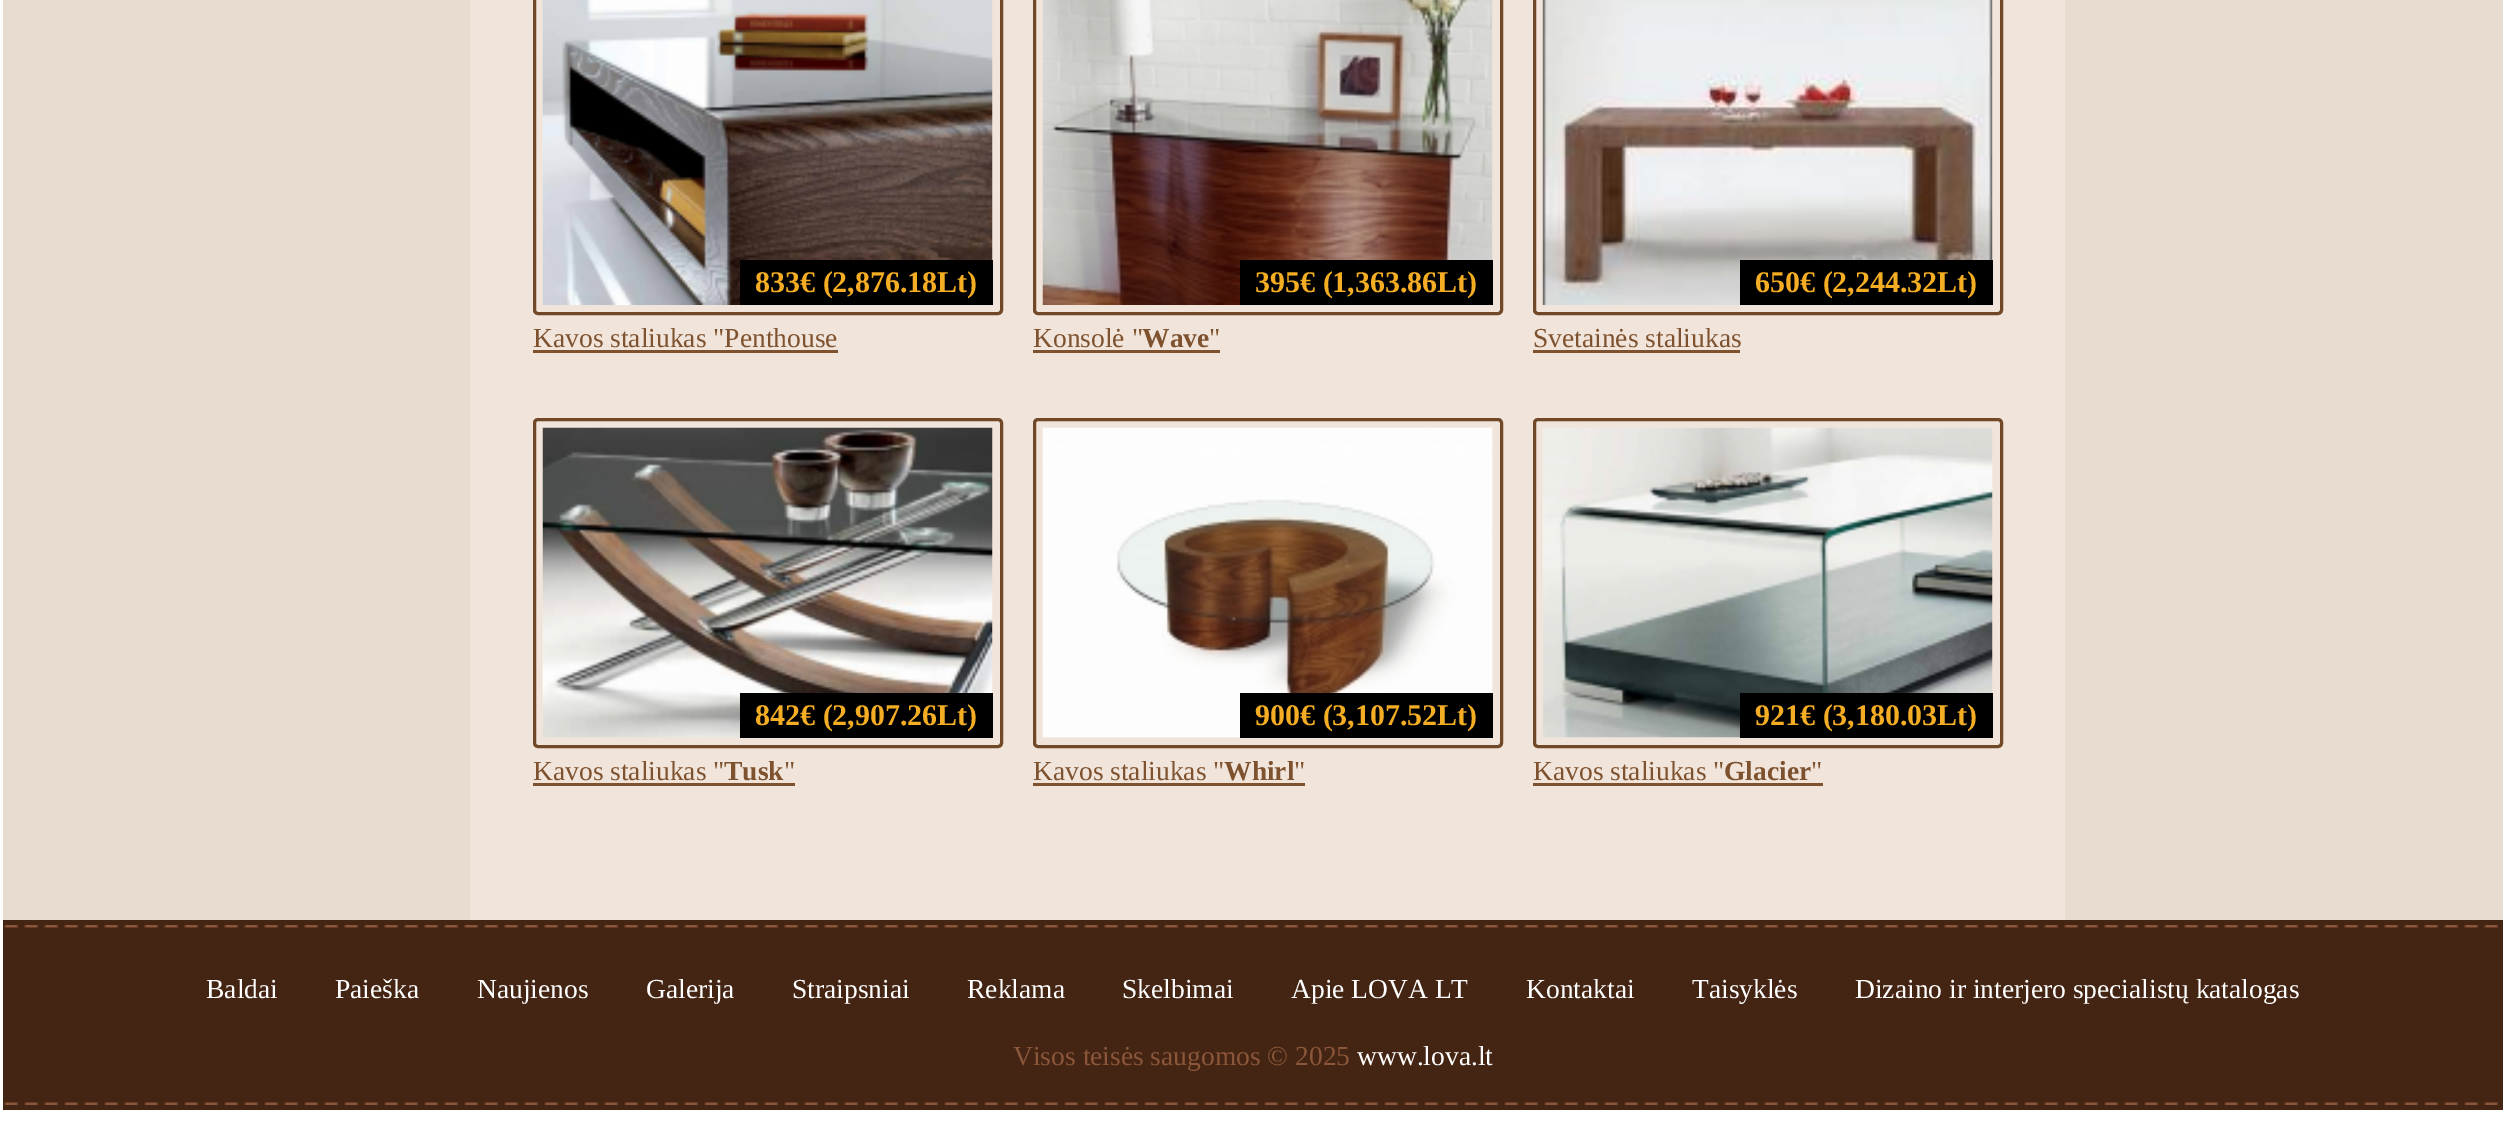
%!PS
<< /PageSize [2505 1122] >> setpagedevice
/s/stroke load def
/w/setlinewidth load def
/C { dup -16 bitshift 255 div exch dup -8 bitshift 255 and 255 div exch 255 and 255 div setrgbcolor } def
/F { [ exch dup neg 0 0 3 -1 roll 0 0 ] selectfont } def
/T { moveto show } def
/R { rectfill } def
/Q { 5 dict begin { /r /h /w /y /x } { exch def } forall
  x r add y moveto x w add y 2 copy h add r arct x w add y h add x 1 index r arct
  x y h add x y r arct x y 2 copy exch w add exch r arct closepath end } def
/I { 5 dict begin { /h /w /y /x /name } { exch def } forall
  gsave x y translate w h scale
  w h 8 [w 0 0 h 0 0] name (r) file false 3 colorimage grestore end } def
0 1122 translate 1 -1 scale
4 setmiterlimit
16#FFFFFF C
0 0 2505 1122 R
16#F1E5DB C
470 0 1595 920 R
16#E8DBD0 C
3 0 467 920 R
16#714929 C
3 w
534.5 -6.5 467 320 3.5 Q s
(1.rgb) 542 0 451 305 I
16#000000 C
740 260 253 45 R
/LiberationSerif-Bold 30 F
16#F5AE24 C
(833€ \(2,876.18Lt\)) 755 292 T
/LiberationSerif-Regular 27.5 F
16#7E522E C
(Kavos staliukas "Penthouse) 533 347 T
533 350 305 3 R
16#714929 C
1034.5 -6.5 467 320 3.5 Q s
(2.rgb) 1042 0 451 305 I
16#000000 C
1240 260 253 45 R
/LiberationSerif-Bold 30 F
16#F5AE24 C
(395€ \(1,363.86Lt\)) 1255 292 T
/LiberationSerif-Regular 27.5 F
16#7E522E C
(Konsolė ") 1033 347 T
1033 350 187 3 R
/LiberationSerif-Bold 27.5 F
(Wave) 1142 347 T
/LiberationSerif-Regular 27.5 F
(") 1209 347 T
16#714929 C
1534.5 -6.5 467 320 3.5 Q s
(3.rgb) 1542 0 451 305 I
16#000000 C
1740 260 253 45 R
/LiberationSerif-Bold 30 F
16#F5AE24 C
(650€ \(2,244.32Lt\)) 1755 292 T
/LiberationSerif-Regular 27.5 F
16#7E522E C
(Svetainės staliukas) 1533 347 T
1533 350 207 3 R
16#714929 C
534.5 419.5 467 327 3.5 Q s
(4.rgb) 542 427 451 311 I
16#000000 C
740 693 253 45 R
/LiberationSerif-Bold 30 F
16#F5AE24 C
(842€ \(2,907.26Lt\)) 755 725 T
/LiberationSerif-Regular 27.5 F
16#7E522E C
(Kavos staliukas ") 533 780 T
533 783 262 3 R
/LiberationSerif-Bold 27.5 F
(Tusk) 724 780 T
/LiberationSerif-Regular 27.5 F
(") 784 780 T
16#714929 C
1034.5 419.5 467 327 3.5 Q s
(5.rgb) 1042 427 451 311 I
16#000000 C
1240 693 253 45 R
/LiberationSerif-Bold 30 F
16#F5AE24 C
(900€ \(3,107.52Lt\)) 1255 725 T
/LiberationSerif-Regular 27.5 F
16#7E522E C
(Kavos staliukas ") 1033 780 T
1033 783 272 3 R
/LiberationSerif-Bold 27.5 F
(Whirl) 1224 780 T
/LiberationSerif-Regular 27.5 F
(") 1294 780 T
16#714929 C
1534.5 419.5 467 327 3.5 Q s
(6.rgb) 1542 427 451 311 I
16#000000 C
1740 693 253 45 R
/LiberationSerif-Bold 30 F
16#F5AE24 C
(921€ \(3,180.03Lt\)) 1755 725 T
/LiberationSerif-Regular 27.5 F
16#7E522E C
(Kavos staliukas ") 1533 780 T
1533 783 290 3 R
/LiberationSerif-Bold 27.5 F
(Glacier) 1724 780 T
/LiberationSerif-Regular 27.5 F
(") 1811 780 T
16#E8DBD0 C
2065 0 438 920 R
16#442413 C
3 920 2500 190 R
(7.rgb) 4 925 2495 3 I
16#FFFFFF C
(Baldai) 206 998 T
(Paieška) 335 998 T
(Naujienos) 477 998 T
(Galerija) 646 998 T
(Straipsniai) 792 998 T
(Reklama) 967 998 T
(Skelbimai) 1122 998 T
(Apie LOVA LT) 1291 998 T
(Kontaktai) 1526 998 T
(Taisyklės) 1692 998 T
(Dizaino ir interjero specialistų katalogas) 1855 998 T
16#8B5639 C
(Visos teisės saugomos © 2025) 1013 1065 T
16#FFFFFF C
(www.lova.lt) 1357 1065 T
(8.rgb) 4 1102 2495 3 I
showpage
